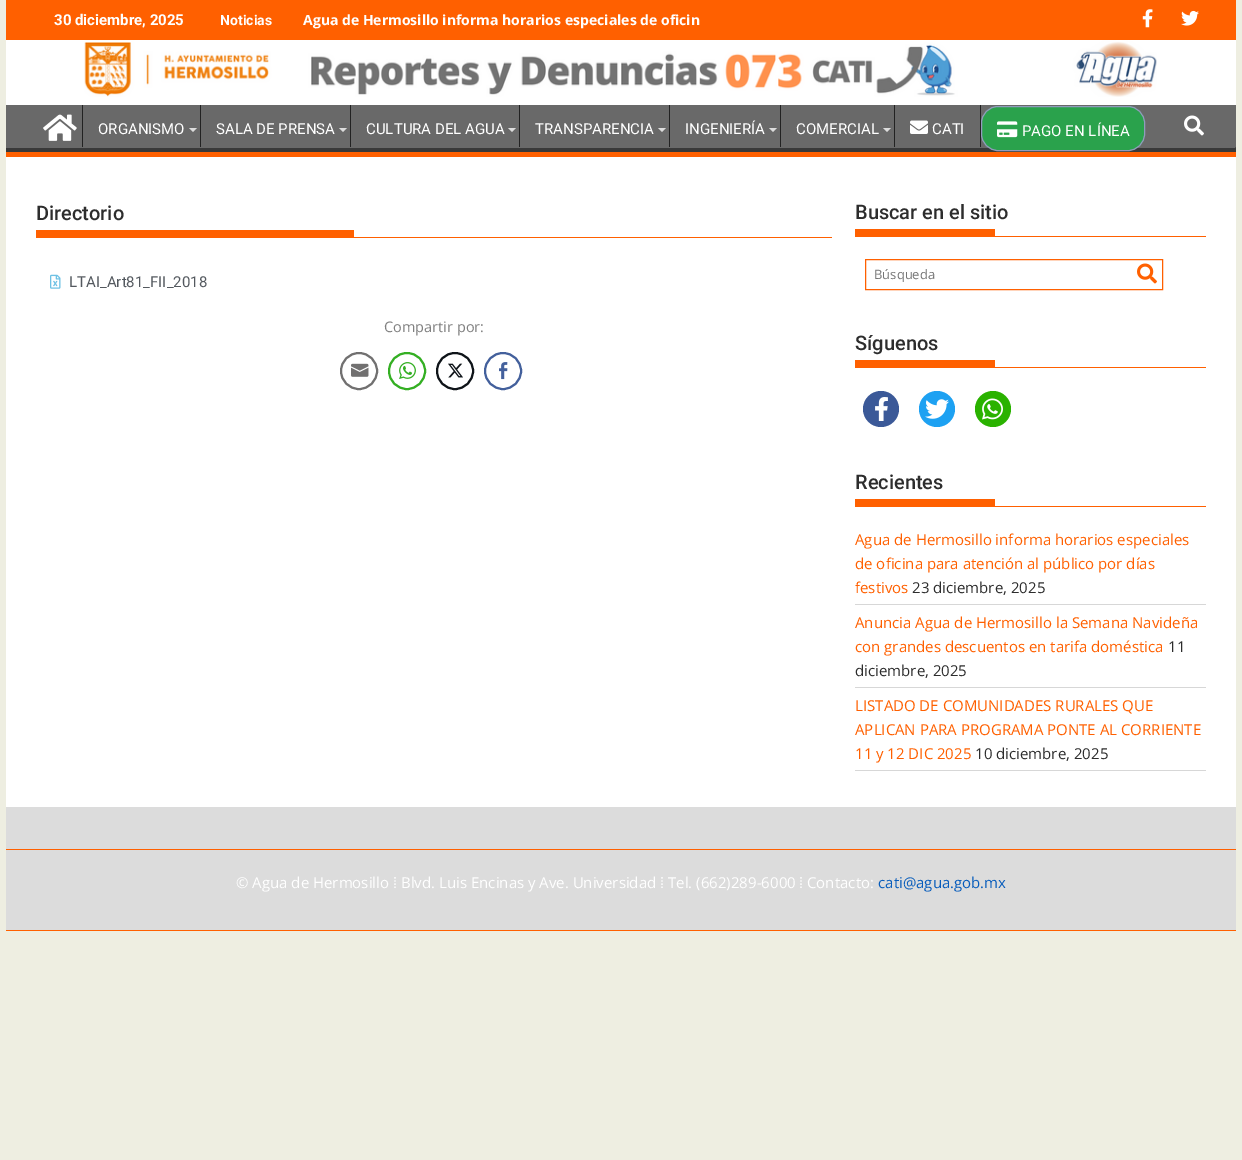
%!PS
<< /PageSize [1242 1160] >> setpagedevice
/m/moveto load def
/l/rlineto load def
/c/rcurveto load def
/z/closepath load def
/f/fill load def
/s/stroke load def
/q/gsave load def
/Q_/grestore load def
/w/setlinewidth load def
/C { dup -16 bitshift 255 div exch dup -8 bitshift 255 and 255 div exch 255 and 255 div setrgbcolor } def
/F { [ exch dup neg 0 0 3 -1 roll 0 0 ] selectfont } def
/T { moveto show } def
/R { rectfill } def
/O { newpath 0 360 arc closepath } def
/Q { 5 dict begin { /r /h /w /y /x } { exch def } forall
  x r add y moveto x w add y 2 copy h add r arct x w add y h add x 1 index r arct
  x y h add x y r arct x y 2 copy exch w add exch r arct closepath end } def
/I { 5 dict begin { /h /w /y /x /name } { exch def } forall
  gsave x y translate w h scale
  w h 8 [w 0 0 h 0 0] name (r) file false 3 colorimage grestore end } def
0 1160 translate 1 -1 scale
4 setmiterlimit
16#EEEEE1 C
0 0 1242 1160 R
16#FFFFFF C
6 40 1230 767 R
16#FF6000 C
6 0 1230 40 R
/Roboto-Bold 15 F
16#FFFFFF C
(30 diciembre, 2025) 54 25 T
/Roboto-Bold 14 F
(Noticias) 220 25 T
/OpenSans-Bold 14 F
(Agua de Hermosillo informa horarios especiales de oficin) 303 25 T
(1.rgb) 1142 9 11 19 I
(2.rgb) 1181 10 18 16 I
(3.rgb) 84 40 1073 57 I
16#696969 C
6 105 1230 43 R
q
6 105 1230 47 rectclip
16#393939 C
-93 6 m 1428 0 l 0 245 l -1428 0 l z 5 99 m 1230 0 l 2 1 1 15 1 17 c 0 31 l -1 1 l -1230 0 l -1 -1 l 0 -48 l z eofill
Q_
16#FF6000 C
6 152 1230 5 R
(4.rgb) 43 114 34 27 I
16#222222 C
82 105 1 42 R
/Roboto-Regular 15 F
16#FFFFFF C
(ORGANISMO) 98 134 T
16#DDDDDD C
189 128 m 8 0 l -4 4 l z f
16#222222 C
200 105 1 42 R
16#FFFFFF C
(SALA DE PRENSA) 216 134 T
16#DDDDDD C
339 128 m 8 0 l -4 4 l z f
16#222222 C
350 105 1 42 R
16#FFFFFF C
(CULTURA DEL AGUA) 366 134 T
16#DDDDDD C
508 128 m 8 0 l -4 4 l z f
16#222222 C
519 105 1 42 R
16#FFFFFF C
(TRANSPARENCIA) 535 134 T
16#DDDDDD C
658 128 m 8 0 l -4 4 l z f
16#222222 C
669 105 1 42 R
16#FFFFFF C
(INGENIERÍA) 685 134 T
16#DDDDDD C
769 128 m 8 0 l -4 4 l z f
16#222222 C
780 105 1 42 R
16#FFFFFF C
(COMERCIAL) 796 134 T
16#DDDDDD C
883 128 m 8 0 l -4 4 l z f
16#222222 C
894 105 1 42 R
(5.rgb) 910 120 18 14 I
16#FFFFFF C
(CATI) 932 134 T
16#222222 C
980 105 1 42 R
16#2AA24C C
981.5 106.5 163 44 16.5 Q q f Q_
16#919BBC C
s
(6.rgb) 997 121 21 17 I
16#FFFFFF C
(PAGO EN LÍNEA) 1022 136 T
(7.rgb) 1184 115 20 21 I
16#FF6000 C
36 237 796 1 R
/Roboto-Medium 20 F
16#2D2D2D C
(Directorio) 36 220 T
16#FF6000 C
36 230 318 7 R
(8.rgb) 50 274 11 15 I
/Roboto-Regular 15 F
16#54595F C
(LTAI_Art81_FII_2018) 69 287 T
/OpenSans-Regular 14.5 F
16#808080 C
(Compartir por:) 384 332 T
16#717070 C
2 w
359 371 18 O s
(9.rgb) 351 363 18 14 I
16#34AF23 C
407 371 18 O s
(10.rgb) 399 362 17 17 I
16#0F1419 C
455 371 18 O s
(11.rgb) 448 363 15 15 I
16#43609C C
503 371 18 O s
(12.rgb) 499 362 9 18 I
16#FF6000 C
855 236 351 1 R
/Roboto-Medium 20 F
16#2D2D2D C
(Buscar en el sitio) 855 219 T
16#FF6000 C
855 229 140 7 R
1 w
865.5 259.5 297 30 rectstroke
/OpenSans-Regular 13 F
16#757575 C
(Búsqueda) 874 279 T
(13.rgb) 1137 263 20 21 I
16#FF6000 C
855 367 351 1 R
/Roboto-Medium 20 F
16#2D2D2D C
(Síguenos) 855 350 T
16#FF6000 C
855 360 140 7 R
16#3B5998 C
881 409 18 O f
(14.rgb) 875 397 13 24 I
16#1DA1F2 C
937 409 18 O f
(15.rgb) 925 399 24 20 I
16#2AB200 C
993 409 18 O f
(16.rgb) 982 398 21 22 I
16#FF6000 C
855 506 351 1 R
16#2D2D2D C
(Recientes) 855 489 T
16#FF6000 C
855 499 140 7 R
16#D7D7D7 C
855 604 351 1 R
/OpenSans-Regular 15 F
16#FF6000 C
(Agua de Hermosillo informa horarios especiales) 855 545 T
(de oficina para atención al público por días) 855 569 T
(festivos) 855 593 T
16#2D2D2D C
(23 diciembre, 2025) 912 593 T
16#D7D7D7 C
855 687 351 1 R
16#FF6000 C
(Anuncia Agua de Hermosillo la Semana Navideña) 855 628 T
(con grandes descuentos en tarifa doméstica) 855 652 T
16#2D2D2D C
(11) 1168 652 T
(diciembre, 2025) 855 676 T
16#D7D7D7 C
855 770 351 1 R
16#FF6000 C
(LISTADO DE COMUNIDADES RURALES QUE) 855 711 T
(APLICAN PARA PROGRAMA PONTE AL CORRIENTE) 855 735 T
(11 y 12 DIC 2025) 855 759 T
16#2D2D2D C
(10 diciembre, 2025) 975 759 T
16#DCDCDC C
6 807 1230 123 R
16#FF6000 C
6 930 1230 1 R
6 849 1230 1 R
16#FFFFFF C
(© Agua de Hermosillo) 236 888 T
/LiberationSans-Regular 15 F
(⁞) 393 888 T
/OpenSans-Regular 15 F
(Blvd. Luis Encinas y Ave. Universidad) 401 888 T
/LiberationSans-Regular 15 F
(⁞) 660 888 T
/OpenSans-Regular 15 F
(Tel. \(662\)289-6000) 668 888 T
/LiberationSans-Regular 15 F
(⁞) 799 888 T
/OpenSans-Regular 15 F
(Contacto:) 807 888 T
16#075CBC C
(cati@agua.gob.mx) 878 888 T
showpage
